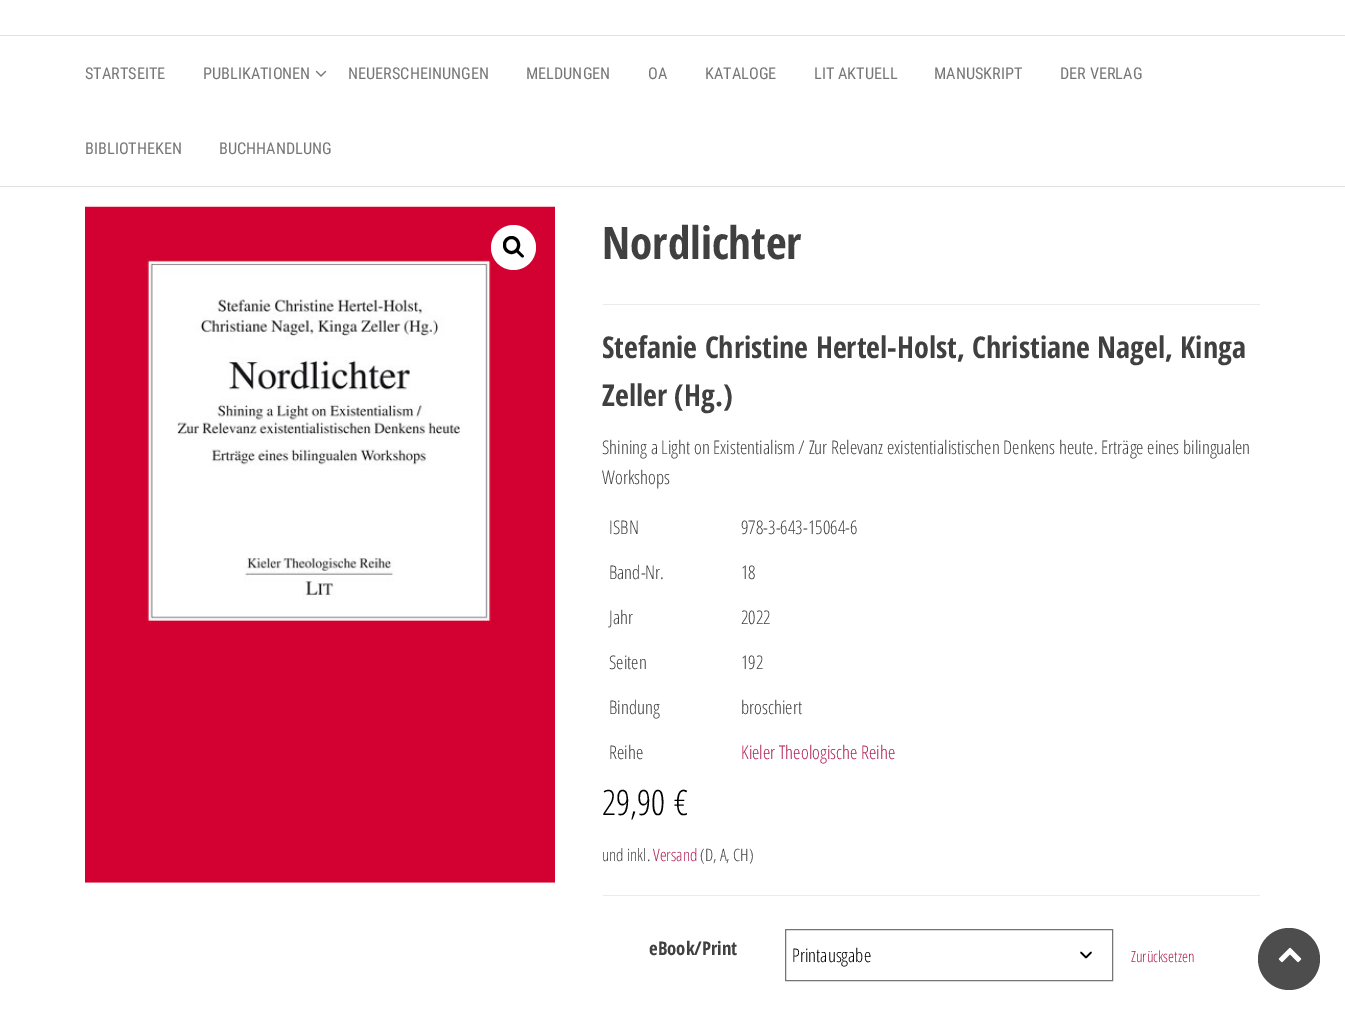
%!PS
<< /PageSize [1345 1014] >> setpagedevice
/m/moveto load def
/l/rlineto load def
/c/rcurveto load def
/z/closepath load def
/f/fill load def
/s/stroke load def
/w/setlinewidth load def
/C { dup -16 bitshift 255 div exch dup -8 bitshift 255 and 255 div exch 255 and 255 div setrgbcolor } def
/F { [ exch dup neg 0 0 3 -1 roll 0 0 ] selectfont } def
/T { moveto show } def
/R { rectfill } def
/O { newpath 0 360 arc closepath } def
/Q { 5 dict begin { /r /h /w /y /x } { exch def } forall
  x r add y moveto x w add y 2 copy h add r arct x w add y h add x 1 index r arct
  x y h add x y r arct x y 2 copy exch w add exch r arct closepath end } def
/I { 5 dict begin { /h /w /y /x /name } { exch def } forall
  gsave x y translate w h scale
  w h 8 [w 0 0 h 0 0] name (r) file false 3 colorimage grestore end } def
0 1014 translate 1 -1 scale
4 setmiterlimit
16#FFFFFF C
0 0 1345 1014 R
16#E2E2E2 C
0 35 1345 1 R
0 186 1345 1 R
/RobotoCondensed-Regular 16.25 F
16#777777 C
(STARTSEITE) 85 79 T
(PUBLIKATIONEN) 203 79 T
(1.rgb) 315 70 12 7 I
(NEUERSCHEINUNGEN) 348 79 T
(MELDUNGEN) 526 79 T
(OA) 648 79 T
(KATALOGE) 705 79 T
(LIT AKTUELL) 814 79 T
(MANUSKRIPT) 934 79 T
(DER VERLAG) 1060 79 T
(BIBLIOTHEKEN) 85 154 T
(BUCHHANDLUNG) 219 154 T
(2.rgb) 85 206 470 677 I
16#FFFFFF C
513.5 247.5 22.5 O f
16#000000 C
3 w
504.5 237.5 14 15 7 Q s
516.5 250 m 1.5 -1 3.5 2 4.5 3 c .5 .5 4 3 2.5 4 c -1.5 1.5 -3.5 -1.5 -4.5 -2.5 c -.5 -.5 -4 -3 -2.5 -4.5 c z f
16#EAEAEA C
603 304 657 1 R
/OpenSansCondensed-Bold 45 F
16#404040 C
(Nordlichter) 602 259 T
/OpenSansCondensed-Bold 30 F
(Stefanie Christine Hertel-Holst, Christiane Nagel, Kinga) 602 358 T
(Zeller \(Hg.\)) 602 406 T
/OpenSansCondensed-Light 18.75 F
(Shining a Light on Existentialism / Zur Relevanz existentialistischen Denkens heute. Erträge eines bilingualen) 602 454 T
(Workshops) 602 484 T
(ISBN) 609 534 T
(978-3-643-15064-6) 741 534 T
(Band-Nr.) 609 579 T
(18) 741 579 T
(Jahr) 609 624 T
(2022) 741 624 T
(Seiten) 609 669 T
(192) 741 669 T
(Bindung) 609 714 T
(broschiert) 741 714 T
(Reihe) 609 759 T
16#B41F56 C
(Kieler Theologische Reihe) 741 759 T
/OpenSansCondensed-Light 35 F
16#000000 C
(29,90) 602 815 T
(€) 674 815 T
/OpenSansCondensed-Light 17 F
16#404040 C
(und inkl.) 602 861 T
16#B41F56 C
(Versand) 653 861 T
16#404040 C
(\(D, A, CH\)) 700 861 T
16#EAEAEA C
603 895 657 1 R
/OpenSansCondensed-Bold 18.75 F
16#404040 C
(eBook/Print) 649 955 T
16#000000 C
1.7 w
1 setlinecap
1 setlinejoin
1081 952.5 m 5 5 l 5 -5 l s
16#767676 C
1 w
0 setlinecap
0 setlinejoin
785.5 929.5 327 51 rectstroke
/OpenSansCondensed-Light 18.75 F
16#000000 C
(Printausgabe) 792 962 T
/OpenSansCondensed-Light 15.5 F
16#B41F56 C
(Zurücksetzen) 1131 962 T
16#4D4D4D C
1289 959 31 O f
(3.rgb) 1278 947 24 16 I
showpage
